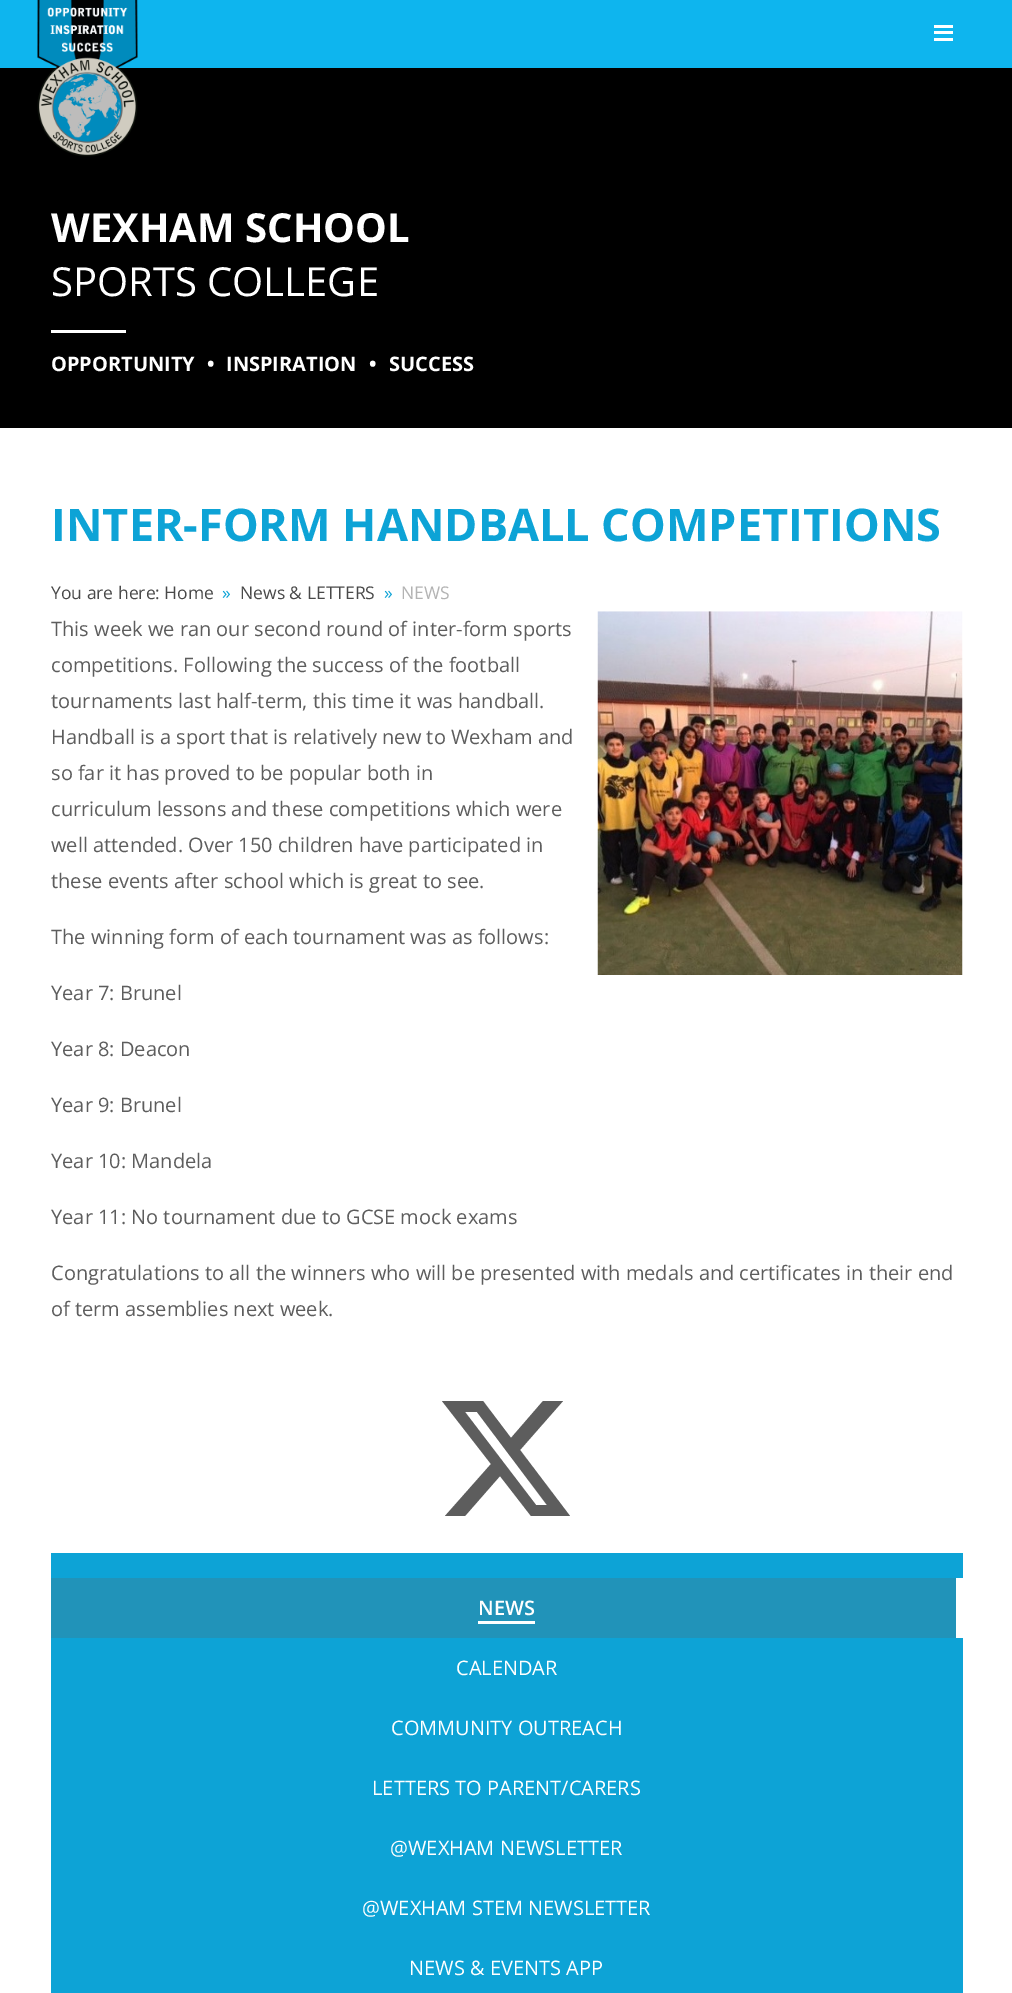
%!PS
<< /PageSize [1012 1993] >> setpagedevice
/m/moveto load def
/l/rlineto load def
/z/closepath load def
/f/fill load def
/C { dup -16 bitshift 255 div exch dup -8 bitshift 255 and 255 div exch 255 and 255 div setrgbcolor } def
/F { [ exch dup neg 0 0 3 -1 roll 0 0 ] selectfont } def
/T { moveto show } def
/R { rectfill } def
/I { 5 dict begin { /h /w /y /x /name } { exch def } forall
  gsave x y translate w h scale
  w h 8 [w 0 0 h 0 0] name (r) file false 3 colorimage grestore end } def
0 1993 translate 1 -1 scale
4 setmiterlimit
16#FFFFFF C
0 0 1012 1993 R
16#0EB5EE C
0 0 1012 68 R
16#FFFFFF C
934 31 19 3 R
934 25 19 3 R
934 38 19 3 R
16#000000 C
0 68 1012 360 R
(1.rgb) 37 0 101 157 I
/OpenSans-Bold 40 F
16#FFFFFF C
(WEXHAM SCHOOL) 51 242 T
/OpenSans-Regular 40 F
(SPORTS COLLEGE) 51 296 T
51 330 75 3 R
/OpenSans-Bold 20 F
(OPPORTUNITY) 51 371 T
(•) 207 371 T
(INSPIRATION) 226 371 T
(•) 369 371 T
(SUCCESS) 389 371 T
/OpenSans-Bold 45 F
16#0DA3D6 C
(INTER-FORM HANDBALL COMPETITIONS) 51 541 T
/OpenSans-Regular 17.5 F
16#494949 C
(You are here: Home) 51 599 T
16#0DA3D6 C
(») 222 599 T
16#494949 C
(News & LETTERS) 240 599 T
16#0DA3D6 C
(») 384 599 T
16#B3B3B3 C
(NEWS) 401 599 T
(2.rgb) 597 611 366 364 I
/OpenSans-Regular 20 F
16#5D5D5D C
(This week we ran our second round of inter-form sports) 51 636 T
(competitions. Following the success of the football) 51 672 T
(tournaments last half-term, this time it was handball.) 51 708 T
(Handball is a sport that is relatively new to Wexham and) 51 744 T
(so far it has proved to be popular both in) 51 780 T
(curriculum lessons and these competitions which were) 51 816 T
(well attended. Over 150 children have participated in) 51 852 T
(these events after school which is great to see.) 51 888 T
(The winning form of each tournament was as follows:) 51 944 T
(Year 7: Brunel) 51 1000 T
(Year 8: Deacon) 51 1056 T
(Year 9: Brunel) 51 1112 T
(Year 10: Mandela) 51 1168 T
(Year 11: No tournament due to GCSE mock exams) 51 1224 T
(Congratulations to all the winners who will be presented with medals and certificates in their end) 51 1280 T
(of term assemblies next week.) 51 1316 T
543 1401 m 20 0 l -43 49 l 50 66 l -39 0 l -31 -40 l -35 40 l -20 0 l 46 -52 l -49 -63 l 41 0 l 28 37 l z 536 1505 m 11 0 l -70 -93 l -12 0 l z f
16#0DA3D6 C
51 1553 912 440 R
16#2193B9 C
51 1578 905 60 R
16#FFFFFF C
956 1578 7 60 R
/OpenSans-SemiBold 20 F
(NEWS) 478 1615 T
478 1621 57 3 R
/OpenSans-Regular 20 F
(CALENDAR) 456 1675 T
(COMMUNITY OUTREACH) 391 1735 T
(LETTERS TO PARENT/CARERS) 372 1795 T
(@WEXHAM NEWSLETTER) 390 1855 T
(@WEXHAM STEM NEWSLETTER) 362 1915 T
(NEWS & EVENTS APP) 409 1975 T
showpage
